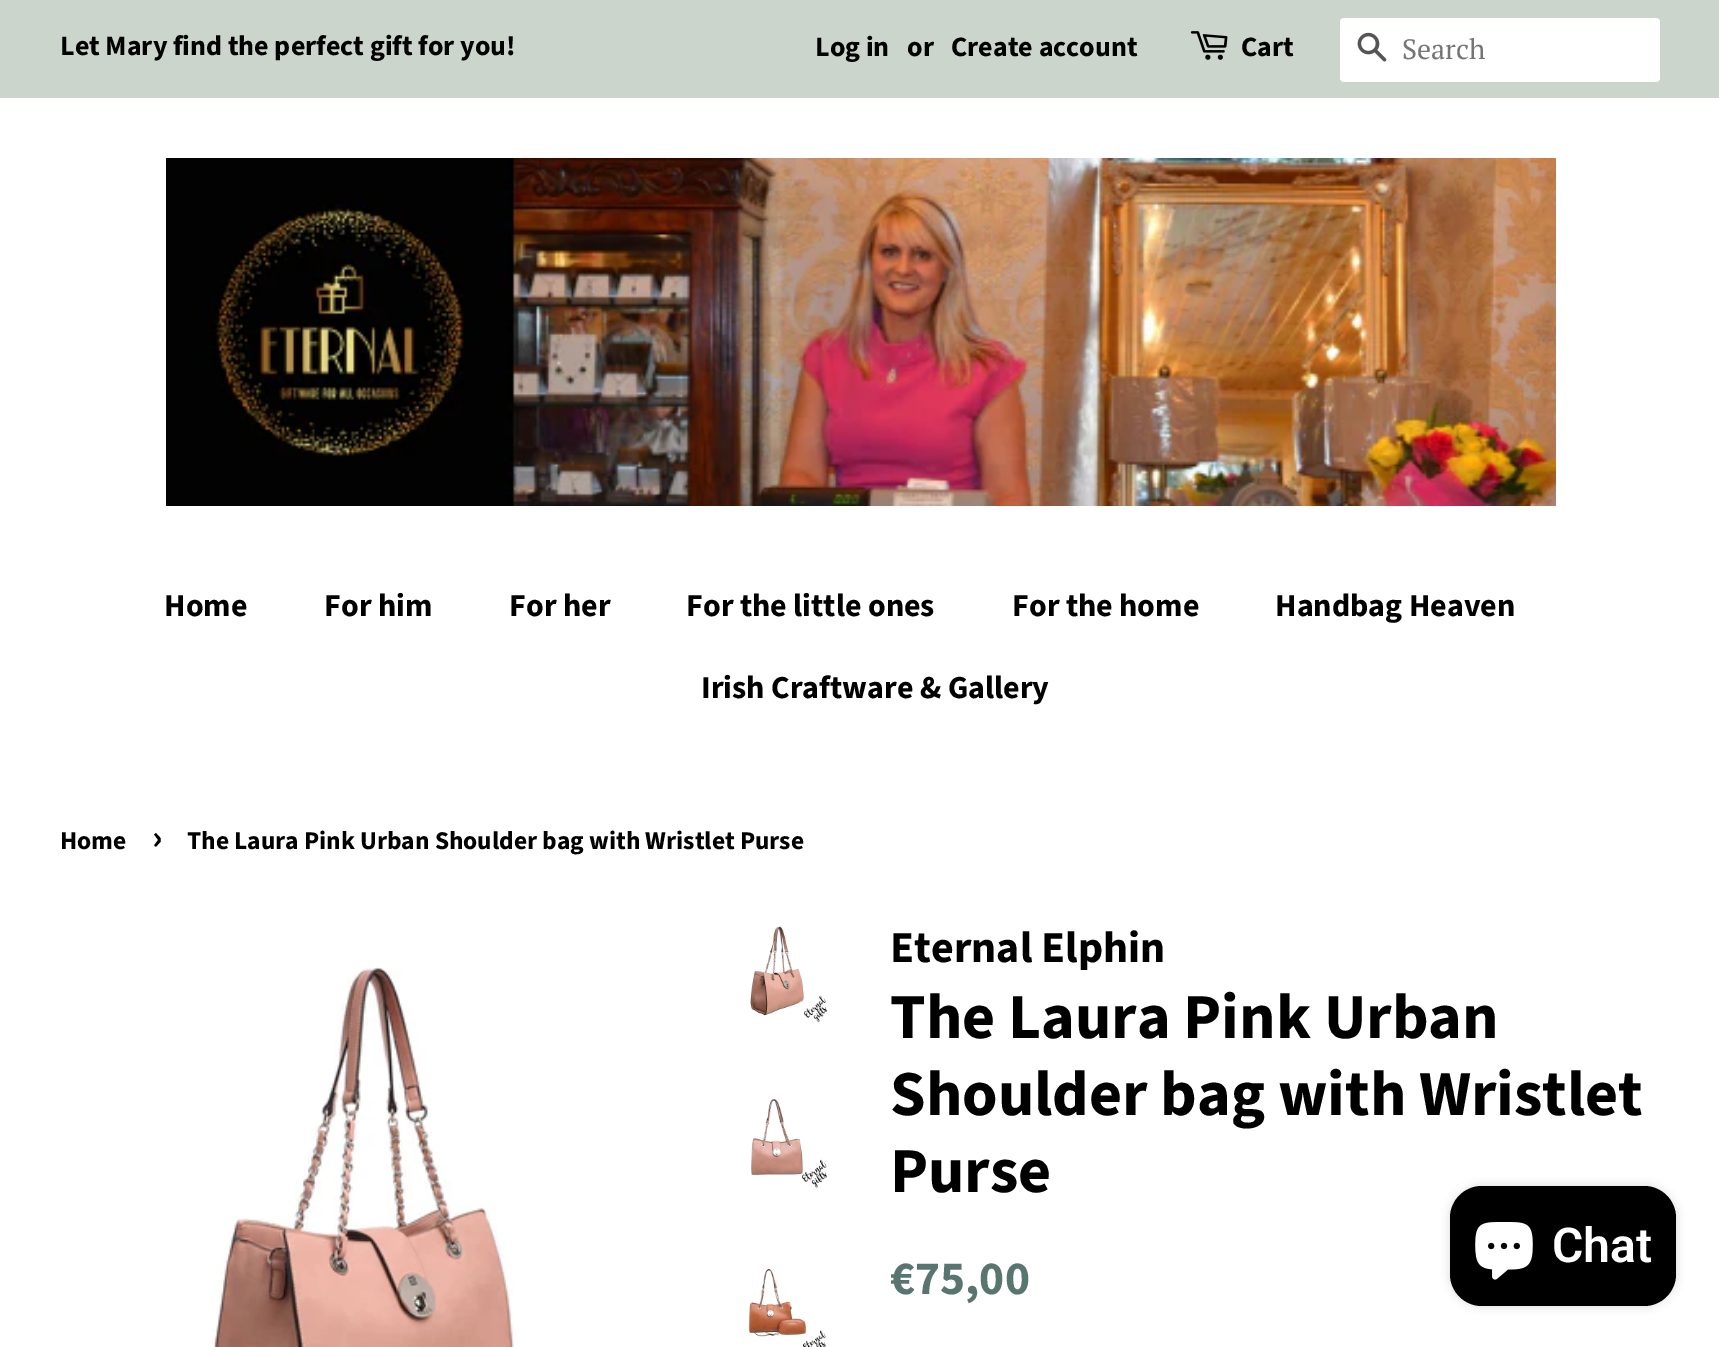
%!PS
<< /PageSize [1719 1347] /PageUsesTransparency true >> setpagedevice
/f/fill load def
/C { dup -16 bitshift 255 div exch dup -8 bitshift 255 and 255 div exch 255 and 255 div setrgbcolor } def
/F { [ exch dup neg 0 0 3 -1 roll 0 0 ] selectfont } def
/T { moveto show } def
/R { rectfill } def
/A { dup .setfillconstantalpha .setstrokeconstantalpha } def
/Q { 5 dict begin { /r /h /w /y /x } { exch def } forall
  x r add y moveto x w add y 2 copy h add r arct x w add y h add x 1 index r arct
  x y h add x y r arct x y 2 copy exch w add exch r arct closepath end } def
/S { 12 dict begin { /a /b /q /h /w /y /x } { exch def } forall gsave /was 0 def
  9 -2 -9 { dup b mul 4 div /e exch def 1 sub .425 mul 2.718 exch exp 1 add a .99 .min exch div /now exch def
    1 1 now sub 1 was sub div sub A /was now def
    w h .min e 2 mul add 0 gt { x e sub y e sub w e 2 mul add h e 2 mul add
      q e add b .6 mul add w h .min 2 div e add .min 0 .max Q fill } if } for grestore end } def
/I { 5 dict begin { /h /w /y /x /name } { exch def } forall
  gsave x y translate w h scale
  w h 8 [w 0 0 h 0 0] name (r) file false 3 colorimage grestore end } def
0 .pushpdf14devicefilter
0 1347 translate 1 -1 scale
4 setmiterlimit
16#FFFFFF C
0 0 1719 1347 R
16#CBD5CC C
0 0 1719 98 R
/SourceSansPro-Bold 28 F
16#000000 C
(Let Mary find the perfect gift for you!) 60 55 T
(Log in) 815 56 T
(or) 907 56 T
(Create account) 951 56 T
(1.rgb) 1190 31 38 29 I
(Cart) 1241 56 T
16#FFFFFF C
1340 18 320 64 4 Q f
(2.rgb) 1357 32 30 30 I
/PTSerif-Regular 28 F
16#757575 C
(Search) 1402 59 T
(3.rgb) 166 158 1390 348 I
/SourceSansPro-Bold 32 F
16#000000 C
(Home) 164 616 T
(For him) 324 616 T
(For her) 509 616 T
(For the little ones) 686 616 T
(For the home) 1012 616 T
(Handbag Heaven) 1275 616 T
(Irish Craftware & Gallery) 701 698 T
/SourceSansPro-Bold 25.5 F
(Home) 60 849 T
/SourceSansPro-Bold 36 F
(›) 152 849 T
/SourceSansPro-Bold 25.5 F
(The Laura Pink Urban Shoulder bag with Wristlet Purse) 187 849 T
(4.rgb) 212 967 302 380 I
(5.rgb) 750 926 78 96 I
(6.rgb) 751 1099 77 89 I
(7.rgb) 748 1268 78 79 I
/SourceSansPro-Bold 44 F
(Eternal Elphin) 890 962 T
/SourceSansPro-Bold 64 F
(The Laura Pink Urban) 890 1038 T
(Shoulder bag with Wristlet) 890 1115 T
(Purse) 890 1192 T
/SourceSansPro-Bold 47.5 F
16#59756F C
(€75,00) 890 1294 T
16#000000 C
1450 1186 226 120 32 5 .15 S
1450 1186 226 120 32 Q f
(8.rgb) 1475 1222 58 58 I
/Roboto-SemiBold 48 F
16#FFFFFF C
(Chat) 1552 1262 T
.poppdf14devicefilter showpage
